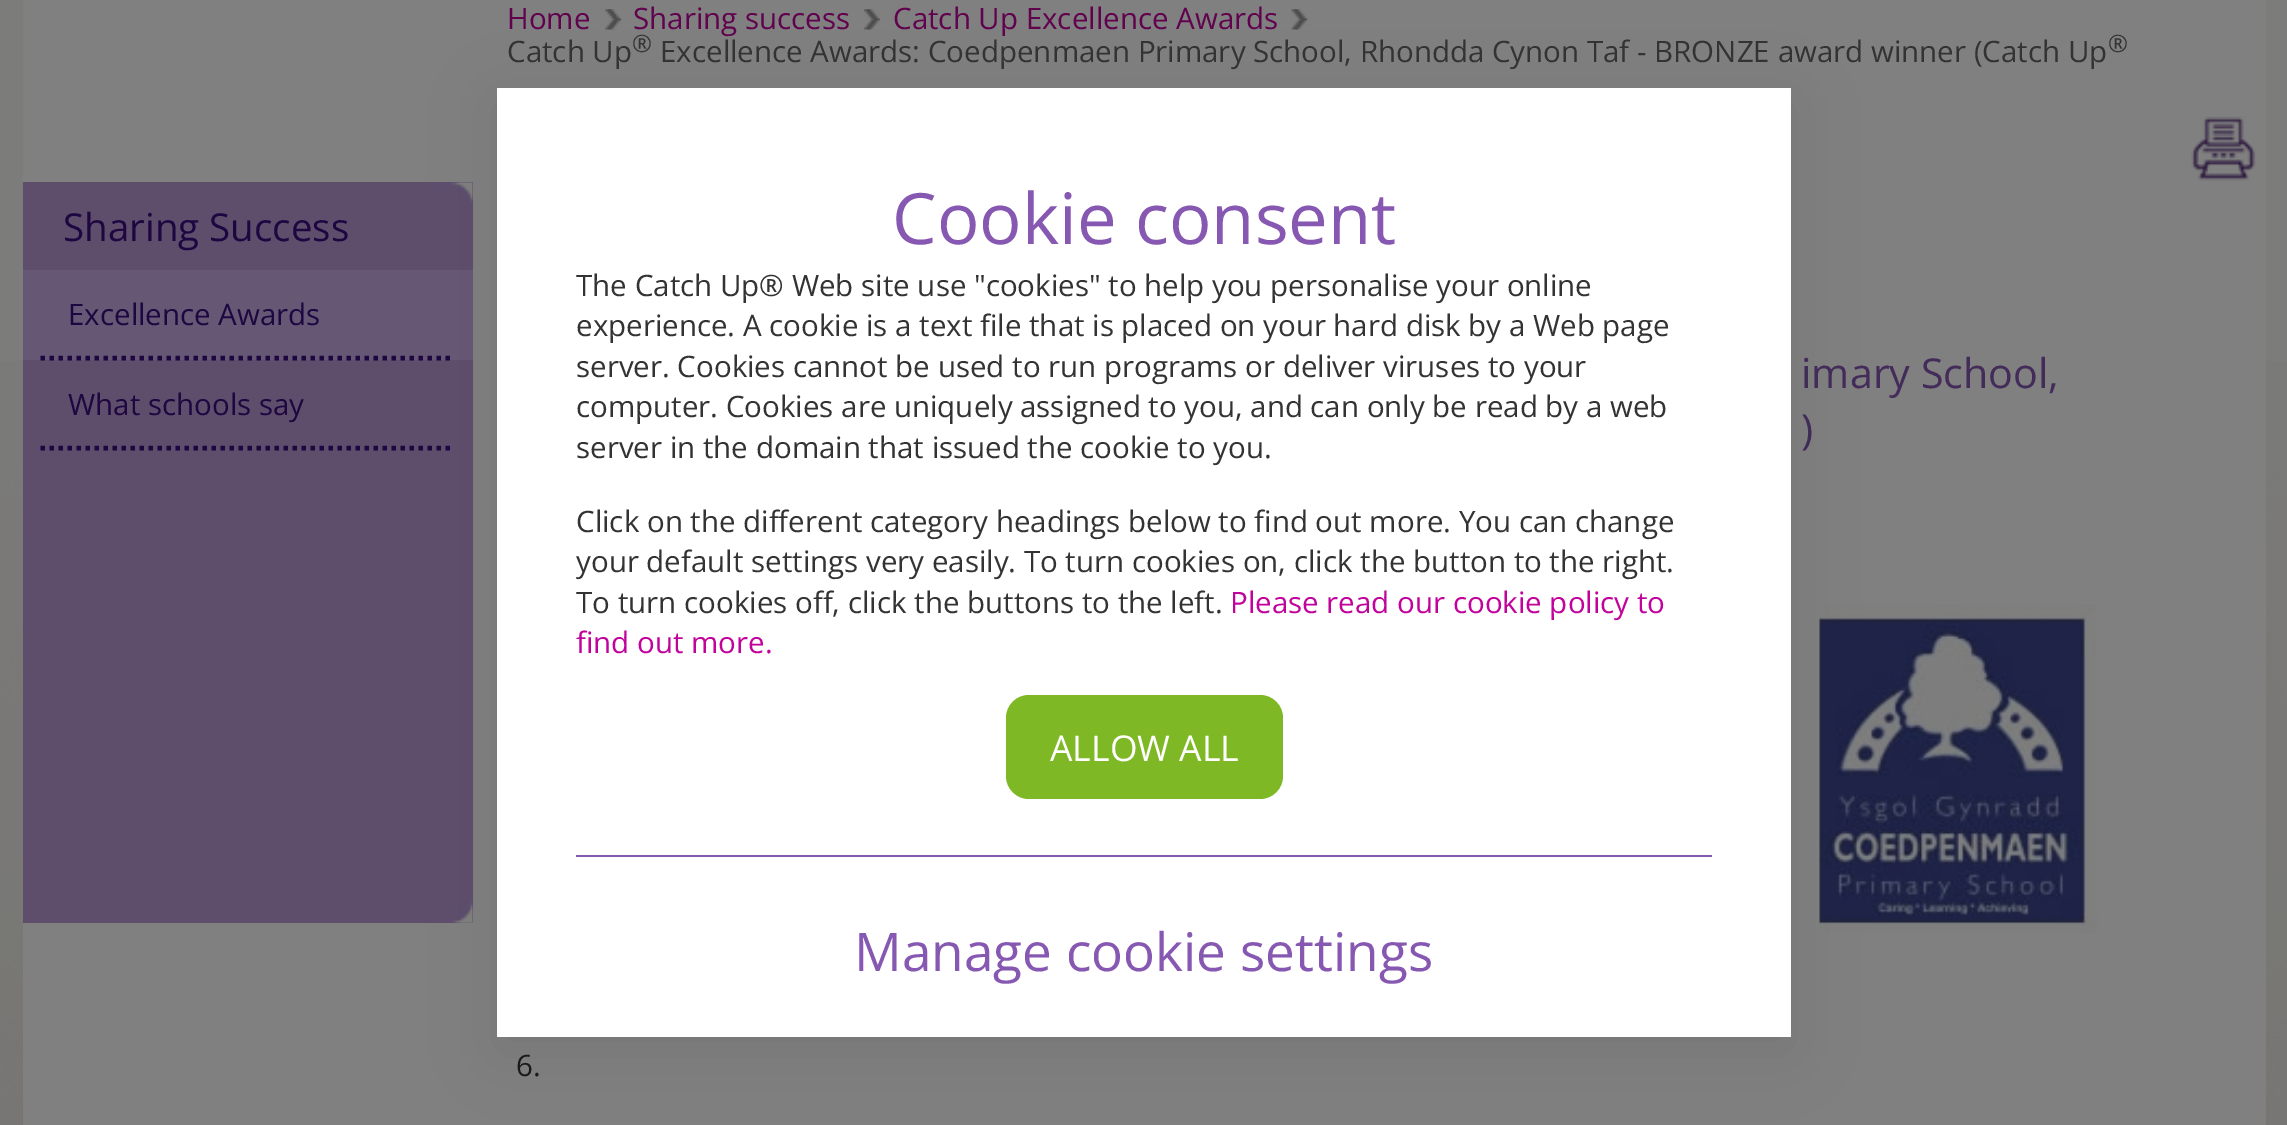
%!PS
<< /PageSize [2287 1125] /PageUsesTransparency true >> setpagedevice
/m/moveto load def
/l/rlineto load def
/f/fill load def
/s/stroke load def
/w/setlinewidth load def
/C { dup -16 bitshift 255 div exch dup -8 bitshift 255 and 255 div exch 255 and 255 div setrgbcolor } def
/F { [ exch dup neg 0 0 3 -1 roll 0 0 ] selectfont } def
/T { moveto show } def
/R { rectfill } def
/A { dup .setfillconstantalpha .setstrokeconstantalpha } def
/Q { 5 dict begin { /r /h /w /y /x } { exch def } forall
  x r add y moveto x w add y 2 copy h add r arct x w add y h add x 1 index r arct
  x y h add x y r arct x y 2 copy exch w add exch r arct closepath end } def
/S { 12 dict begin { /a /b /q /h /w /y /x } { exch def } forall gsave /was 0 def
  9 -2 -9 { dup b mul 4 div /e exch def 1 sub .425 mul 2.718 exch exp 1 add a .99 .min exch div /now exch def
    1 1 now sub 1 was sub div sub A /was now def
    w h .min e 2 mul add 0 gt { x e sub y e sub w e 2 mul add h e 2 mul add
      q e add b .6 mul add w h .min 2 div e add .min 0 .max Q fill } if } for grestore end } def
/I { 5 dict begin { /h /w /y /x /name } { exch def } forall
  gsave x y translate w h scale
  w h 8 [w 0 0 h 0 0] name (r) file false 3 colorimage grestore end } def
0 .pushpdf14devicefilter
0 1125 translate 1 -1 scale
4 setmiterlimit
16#7C7C7B C
0 0 2287 1125 R
(1.rgb) 0 361 2287 764 I
16#808080 C
23 0 2243 1125 R
(2.rgb) 605 9 16 21 I
/OpenSans-Regular 29.5 F
16#61024E C
(Home) 507 29 T
(3.rgb) 864 9 16 21 I
(Sharing success) 633 29 T
(4.rgb) 1291 9 17 21 I
(Catch Up Excellence Awards) 893 29 T
16#333333 C
(Catch Up) 507 62 T
/OpenSans-Regular 24 F
(®) 632 52 T
/OpenSans-Regular 29.5 F
(Excellence Awards: Coedpenmaen Primary School, Rhondda Cynon Taf - BRONZE award winner \(Catch Up) 660 62 T
/OpenSans-Regular 24 F
(®) 2108 52 T
(5.rgb) 2191 116 65 65 I
16#5E4E6C C
23 182 450 741 R
(6.rgb) 435 182 38 22 I
/OpenSans-Regular 38.5 F
16#1E0640 C
(Sharing Success) 63 241 T
(7.rgb) 452 901 21 22 I
16#665875 C
23 270 450 90 R
16#1E0640 C
4.5 w
[4.5 4.5] 0 setdash
40.5 358 m 414 0 l s
/OpenSans-Regular 29.5 F
(Excellence Awards) 68 325 T
40.5 448 m 414 0 l s
(What schools say) 68 415 T
/OpenSans-Regular 41.25 F
16#432C59 C
(imary School,) 1801 388 T
(\)) 1801 444 T
(8.rgb) 1819 604 278 329 I
/OpenSans-Regular 29.5 F
16#1A1A1A C
(6.) 516 1076 T
16#000000 C
497 101 1294 950 0 31.5 .08 S
16#FFFFFF C
497 88 1294 949 R
/OpenSans-Regular 70.75 F
16#8658B2 C
(Cookie consent) 892 244 T
576 855 1136 2 R
/OpenSans-Regular 29.5 F
16#333333 C
(The Catch Up® Web site use "cookies" to help you personalise your online) 576 296 T
(experience. A cookie is a text file that is placed on your hard disk by a Web page) 576 336 T
(server. Cookies cannot be used to run programs or deliver viruses to your) 576 377 T
(computer. Cookies are uniquely assigned to you, and can only be read by a web) 576 417 T
(server in the domain that issued the cookie to you.) 576 458 T
(Click on the different category headings below to find out more. You can change) 576 532 T
(your default settings very easily. To turn cookies on, click the button to the right.) 576 572 T
(To turn cookies off, click the buttons to the left.) 576 613 T
16#C1039B C
(Please read our cookie policy to) 1230 613 T
(find out more.) 576 653 T
16#7FB825 C
1006 695 277 104 23 Q f
/OpenSans-Regular 35.5 F
16#FFFFFF C
(ALLOW ALL) 1050 761 T
/OpenSans-Regular 53.1 F
16#8658B2 C
(Manage cookie settings) 854 971 T
.poppdf14devicefilter showpage
